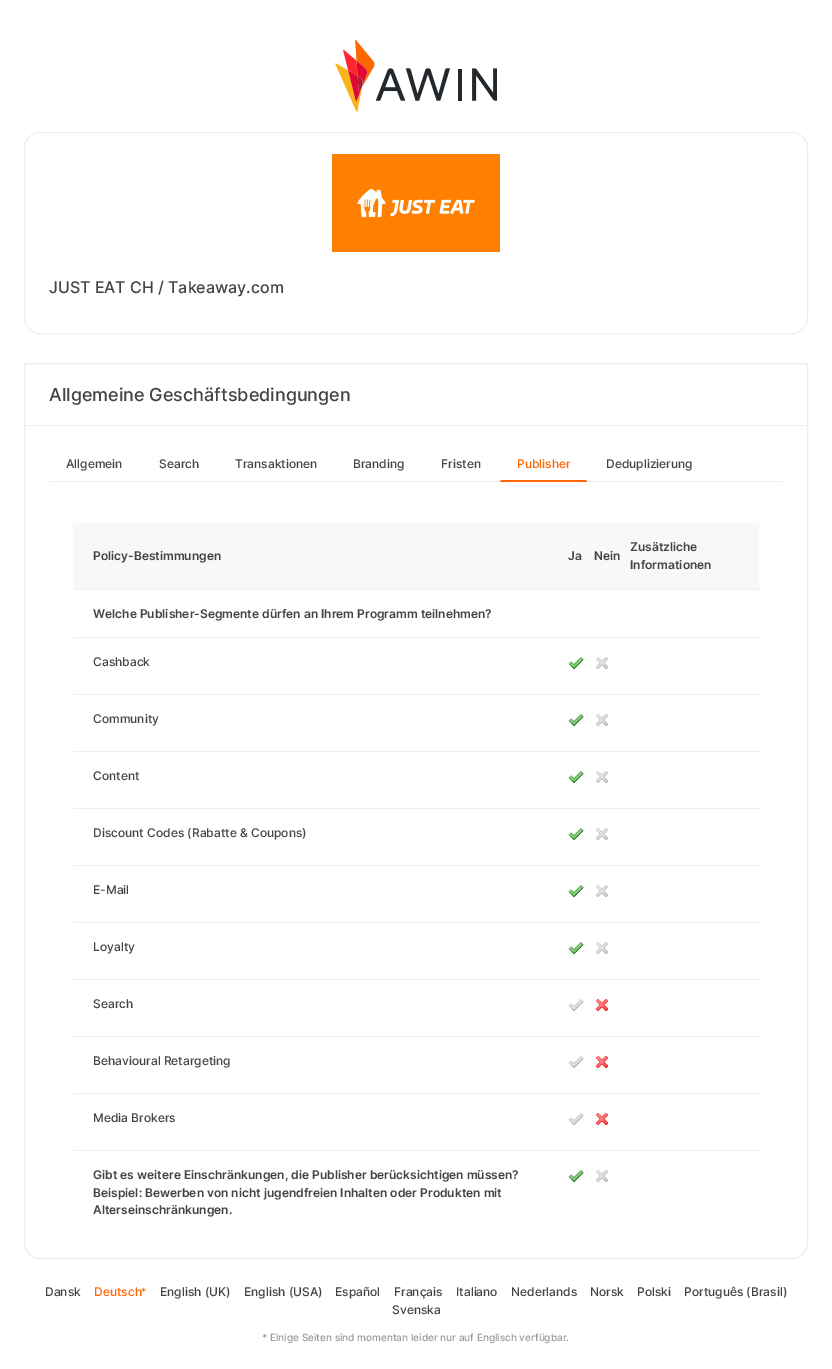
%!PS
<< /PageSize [832 1369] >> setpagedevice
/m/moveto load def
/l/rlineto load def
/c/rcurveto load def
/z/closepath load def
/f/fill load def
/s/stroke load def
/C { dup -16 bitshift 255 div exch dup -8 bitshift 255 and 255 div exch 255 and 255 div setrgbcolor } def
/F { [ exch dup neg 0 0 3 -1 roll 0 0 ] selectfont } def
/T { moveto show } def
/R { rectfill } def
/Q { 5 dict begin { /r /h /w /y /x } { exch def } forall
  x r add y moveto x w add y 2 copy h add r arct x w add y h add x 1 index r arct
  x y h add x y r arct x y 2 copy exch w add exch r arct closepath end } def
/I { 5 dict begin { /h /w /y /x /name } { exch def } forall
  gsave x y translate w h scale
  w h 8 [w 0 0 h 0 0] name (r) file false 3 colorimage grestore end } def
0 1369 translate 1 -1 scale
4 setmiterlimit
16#FFFFFF C
0 0 832 1369 R
(1.rgb) 335 40 162 72 I
16#EEEEEE C
24.5 132.5 783 201 15.5 Q s
(2.rgb) 332 154 168 98 I
/Inter-Medium 16 F
16#444444 C
(JUST EAT CH / Takeaway.com) 49 293 T
16#EEEEEE C
24.5 363.5 m 783 0 l 0 879.5 l 0 8.5 -7 15.5 -15.5 15.5 c -752 0 l -8.5 0 -15.5 -7 -15.5 -15.5 c z s
25 425 782 1 R
/Inter-Medium 18 F
16#444444 C
(Allgemeine Geschäftsbedingungen) 49 401 T
16#EEEEEE C
49 481 734 1 R
/Inter-Medium 12 F
16#444444 C
(Allgemein) 66 468 T
(Search) 159 468 T
(Transaktionen) 235 468 T
(Branding) 353 468 T
(Fristen) 441 468 T
16#FF6600 C
587 482 m -1 -2 l -85 0 l -1 2 l z f
(Publisher) 517 468 T
16#444444 C
(Deduplizierung) 606 468 T
16#F8F8F8 C
73 523 686 66 R
/Inter-SemiBold 12 F
16#444444 C
(Policy-Bestimmungen) 93 560 T
(Ja) 568 560 T
(Nein) 594 560 T
16#EEEEEE C
73 589 687 1 R
16#444444 C
(Zusätzliche) 630 551 T
(Informationen) 630 569 T
(Welche Publisher-Segmente dürfen an Ihrem Programm teilnehmen?) 93 618 T
16#EEEEEE C
73 637 687 1 R
/Inter-Medium 12 F
16#444444 C
(Cashback) 93 666 T
(3.rgb) 568 657 16 13 I
(4.rgb) 596 657 12 12 I
16#EEEEEE C
73 694 687 1 R
16#444444 C
(Community) 93 723 T
(3.rgb) 568 714 16 13 I
(4.rgb) 596 714 12 12 I
16#EEEEEE C
73 751 687 1 R
16#444444 C
(Content) 93 780 T
(3.rgb) 568 771 16 13 I
(4.rgb) 596 771 12 12 I
16#EEEEEE C
73 808 687 1 R
16#444444 C
(Discount Codes \(Rabatte & Coupons\)) 93 837 T
(3.rgb) 568 828 16 13 I
(4.rgb) 596 828 12 12 I
16#EEEEEE C
73 865 687 1 R
16#444444 C
(E-Mail) 93 894 T
(3.rgb) 568 885 16 13 I
(4.rgb) 596 885 12 12 I
16#EEEEEE C
73 922 687 1 R
16#444444 C
(Loyalty) 93 951 T
(3.rgb) 568 942 16 13 I
(4.rgb) 596 942 12 12 I
16#EEEEEE C
73 979 687 1 R
16#444444 C
(Search) 93 1008 T
(5.rgb) 568 999 16 12 I
(6.rgb) 596 999 12 12 I
16#EEEEEE C
73 1036 687 1 R
16#444444 C
(Behavioural Retargeting) 93 1065 T
(5.rgb) 568 1056 16 12 I
(6.rgb) 596 1056 12 12 I
16#EEEEEE C
73 1093 687 1 R
16#444444 C
(Media Brokers) 93 1122 T
(5.rgb) 568 1113 16 12 I
(6.rgb) 596 1113 12 12 I
16#EEEEEE C
73 1150 687 1 R
/Inter-SemiBold 12 F
16#444444 C
(Gibt es weitere Einschränkungen, die Publisher berücksichtigen müssen?) 93 1179 T
(Beispiel: Bewerben von nicht jugendfreien Inhalten oder Produkten mit) 93 1197 T
(Alterseinschränkungen.) 93 1214 T
(3.rgb) 568 1170 16 13 I
(4.rgb) 596 1170 12 12 I
/Inter-Medium 12 F
(Dansk) 45 1296 T
16#FF6600 C
(Deutsch) 94 1296 T
/Inter-Medium 10 F
(*) 141 1295 T
/Inter-Medium 12 F
16#444444 C
(English \(UK\)) 160 1296 T
(English \(USA\)) 244 1296 T
(Español) 335 1296 T
(Français) 394 1296 T
(Italiano) 456 1296 T
(Nederlands) 511 1296 T
(Norsk) 590 1296 T
(Polski) 637 1296 T
(Português \(Brasil\)) 684 1296 T
(Svenska) 392 1314 T
/Inter-Medium 10 F
16#999999 C
(* Einige Seiten sind momentan leider nur auf Englisch verfügbar.) 262 1341 T
showpage
